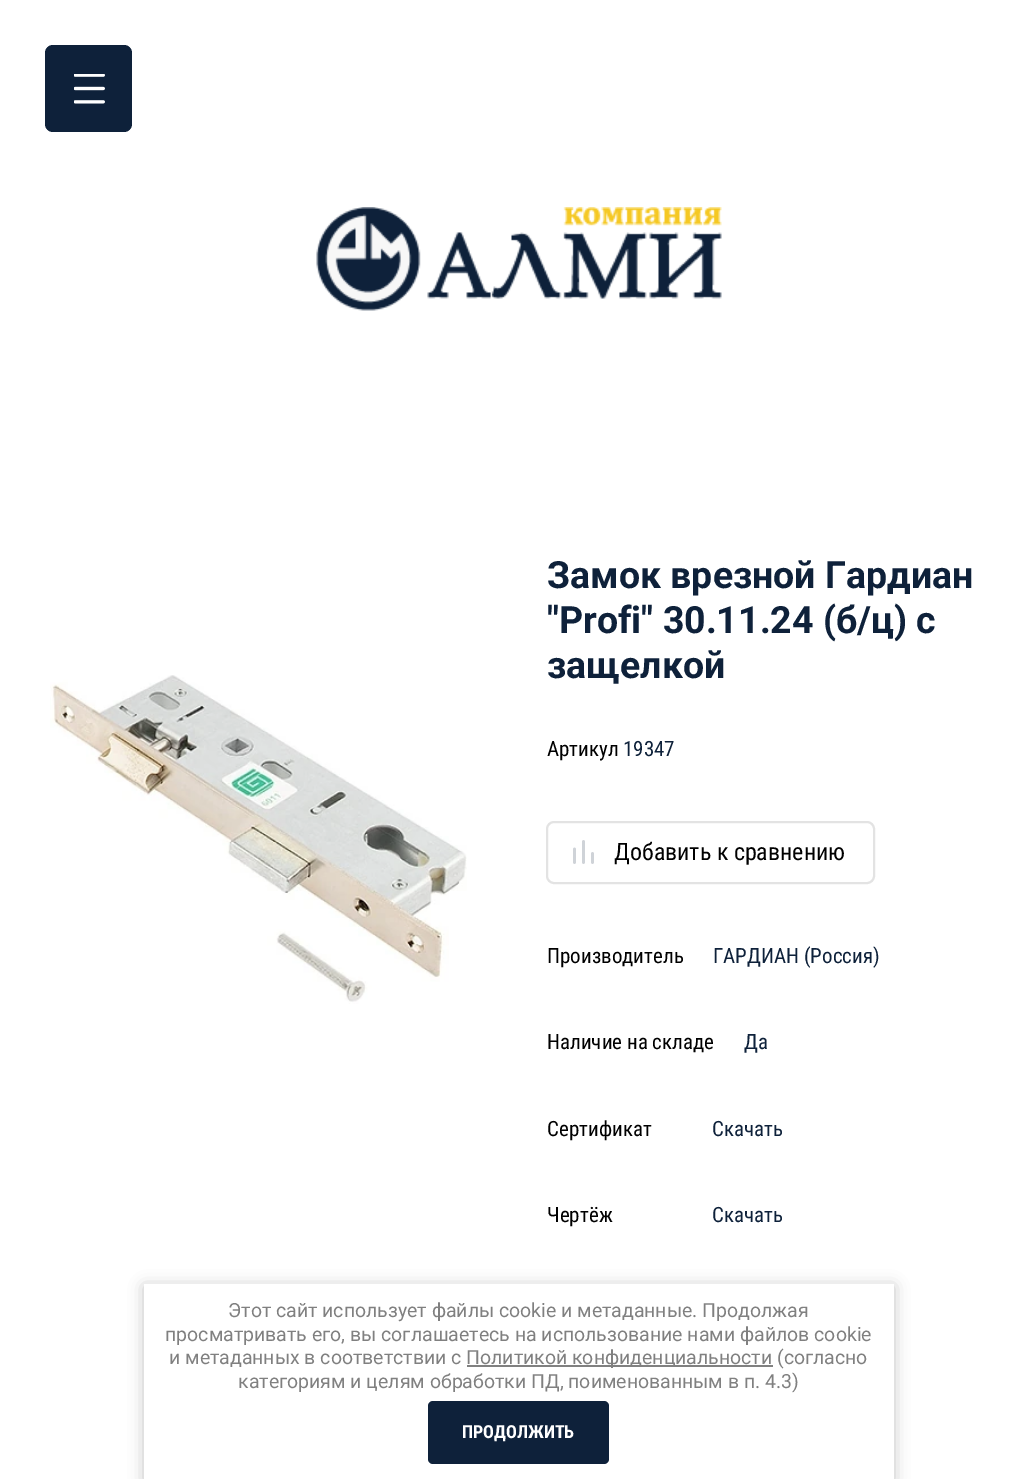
%!PS
<< /PageSize [1036 1479] /PageUsesTransparency true >> setpagedevice
/f/fill load def
/s/stroke load def
/w/setlinewidth load def
/C { dup -16 bitshift 255 div exch dup -8 bitshift 255 and 255 div exch 255 and 255 div setrgbcolor } def
/F { [ exch dup neg 0 0 3 -1 roll 0 0 ] selectfont } def
/T { moveto show } def
/R { rectfill } def
/A { dup .setfillconstantalpha .setstrokeconstantalpha } def
/Q { 5 dict begin { /r /h /w /y /x } { exch def } forall
  x r add y moveto x w add y 2 copy h add r arct x w add y h add x 1 index r arct
  x y h add x y r arct x y 2 copy exch w add exch r arct closepath end } def
/S { 12 dict begin { /a /b /q /h /w /y /x } { exch def } forall gsave /was 0 def
  9 -2 -9 { dup b mul 4 div /e exch def 1 sub .425 mul 2.718 exch exp 1 add a .99 .min exch div /now exch def
    1 1 now sub 1 was sub div sub A /was now def
    w h .min e 2 mul add 0 gt { x e sub y e sub w e 2 mul add h e 2 mul add
      q e add b .6 mul add w h .min 2 div e add .min 0 .max Q fill } if } for grestore end } def
/I { 5 dict begin { /h /w /y /x /name } { exch def } forall
  gsave x y translate w h scale
  w h 8 [w 0 0 h 0 0] name (r) file false 3 colorimage grestore end } def
0 .pushpdf14devicefilter
0 1479 translate 1 -1 scale
4 setmiterlimit
16#FFFFFF C
0 0 1036 1479 R
16#0E213A C
45 45 87 87 8 Q f
(1.rgb) 74 74 31 30 I
(2.rgb) 316 207 406 104 I
(3.rgb) 50 675 417 329 I
/Roboto-Bold 37.5 F
(Замок врезной Гардиан) 547 588 T
("Profi" 30.11.24 \(б/ц\) с) 547 633 T
(защелкой) 547 678 T
/RobotoCondensed-Regular 21 F
16#000000 C
(Артикул) 547 756 T
16#0E213A C
(19347) 623 756 T
16#E3E3E3 C
2 w
547 822 327 61 7 Q s
(4.rgb) 573 840 21 24 I
/RobotoCondensed-Regular 24 F
16#000000 C
(Добавить к сравнению) 614 860 T
/RobotoCondensed-Regular 21 F
(Производитель) 547 963 T
16#0E213A C
(ГАРДИАН \(Россия\)) 713 963 T
16#000000 C
(Наличие на складе) 547 1049 T
16#0E213A C
(Да) 744 1049 T
16#000000 C
(Сертификат) 547 1136 T
16#0E213A C
(Скачать) 712 1136 T
16#000000 C
(Чертёж) 547 1222 T
16#0E213A C
(Скачать) 712 1222 T
16#000000 C
144 1286 750 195 0 7.5 .23 S
16#FFFFFF C
144 1284 750 195 R
/Roboto-Regular 19.5 F
16#808080 C
(Этот сайт использует файлы cookie и метаданные. Продолжая) 228 1317 T
(просматривать его, вы соглашаетесь на использование нами файлов cookie) 165 1341 T
(и метаданных в соответствии с) 169 1364 T
467 1365 306 2 R
(Политикой конфиденциальности \(согласно) 466 1364 T
(категориям и целям обработки ПД, поименованным в п. 4.3\)) 238 1388 T
16#0E213A C
428 1401 181 63 5 Q f
/RobotoCondensed-Bold 18 F
16#FFFFFF C
(ПРОДОЛЖИТЬ) 462 1438 T
.poppdf14devicefilter showpage
